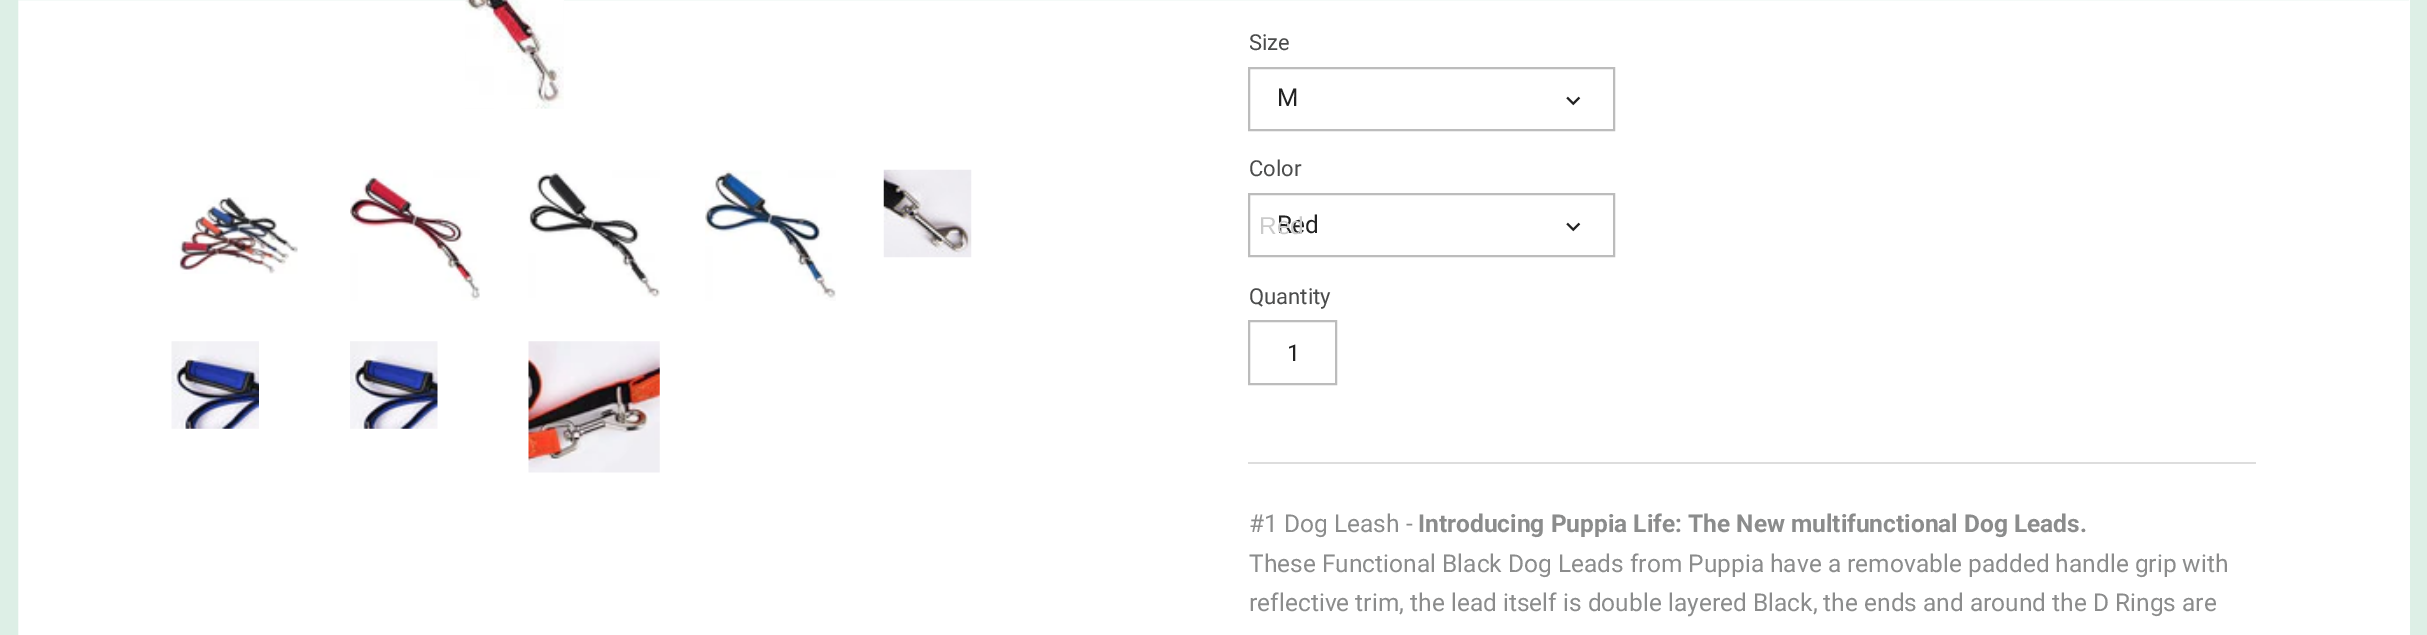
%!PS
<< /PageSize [2427 635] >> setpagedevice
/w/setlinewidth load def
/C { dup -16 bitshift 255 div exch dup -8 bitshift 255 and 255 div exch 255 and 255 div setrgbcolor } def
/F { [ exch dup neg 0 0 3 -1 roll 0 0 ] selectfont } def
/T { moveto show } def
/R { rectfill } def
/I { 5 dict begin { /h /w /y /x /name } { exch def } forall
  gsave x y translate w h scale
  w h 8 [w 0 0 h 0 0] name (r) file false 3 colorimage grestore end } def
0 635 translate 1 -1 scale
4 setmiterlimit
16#FFFFFF C
0 0 2427 635 R
16#DDEFE6 C
18 w
9 -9 2409 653 rectstroke
16#FFFFFF C
2409 0 1 635 R
(1.rgb) 465 0 99 109 I
(2.rgb) 172 197 126 77 I
(3.rgb) 350 170 130 131 I
(4.rgb) 528 170 132 128 I
(5.rgb) 705 170 131 131 I
(6.rgb) 883 169 89 89 I
(7.rgb) 171 341 88 88 I
(8.rgb) 350 341 88 88 I
(9.rgb) 528 341 132 132 I
16#DDDDDD C
1248 462 1008 2 R
/Roboto-Regular 22 F
16#4B4C4C C
(Size) 1249 50 T
16#BCBCBC C
2 w
1249 68 365 62 rectstroke
/Roboto-Regular 24.5 F
16#222222 C
(M) 1277 106 T
(10.rgb) 1566 96 15 10 I
/Roboto-Regular 22 F
16#4B4C4C C
(Color) 1249 176 T
16#BCBCBC C
1249 194 365 62 rectstroke
/Roboto-Regular 24.5 F
16#222222 C
(Red) 1277 233 T
/LiberationSans-Regular 24.5 F
16#CBCBCB C
(Red) 1259 234 T
(10.rgb) 1566 222 15 10 I
/Roboto-Regular 22 F
16#4B4C4C C
(Quantity) 1249 304 T
16#BCBCBC C
1249 321 87 63 rectstroke
/Roboto-Regular 23 F
16#222222 C
(1) 1287 361 T
/Roboto-Regular 24.5 F
16#8B8C8C C
(#1 Dog Leash -) 1249 532 T
/Roboto-Bold 24.5 F
(Introducing Puppia Life: The New multifunctional Dog Leads.) 1418 532 T
/Roboto-Regular 24.5 F
(These Functional Black Dog Leads from Puppia have a removable padded handle grip with) 1249 572 T
(reflective trim, the lead itself is double layered Black, the ends and around the D Rings are) 1249 611 T
showpage
